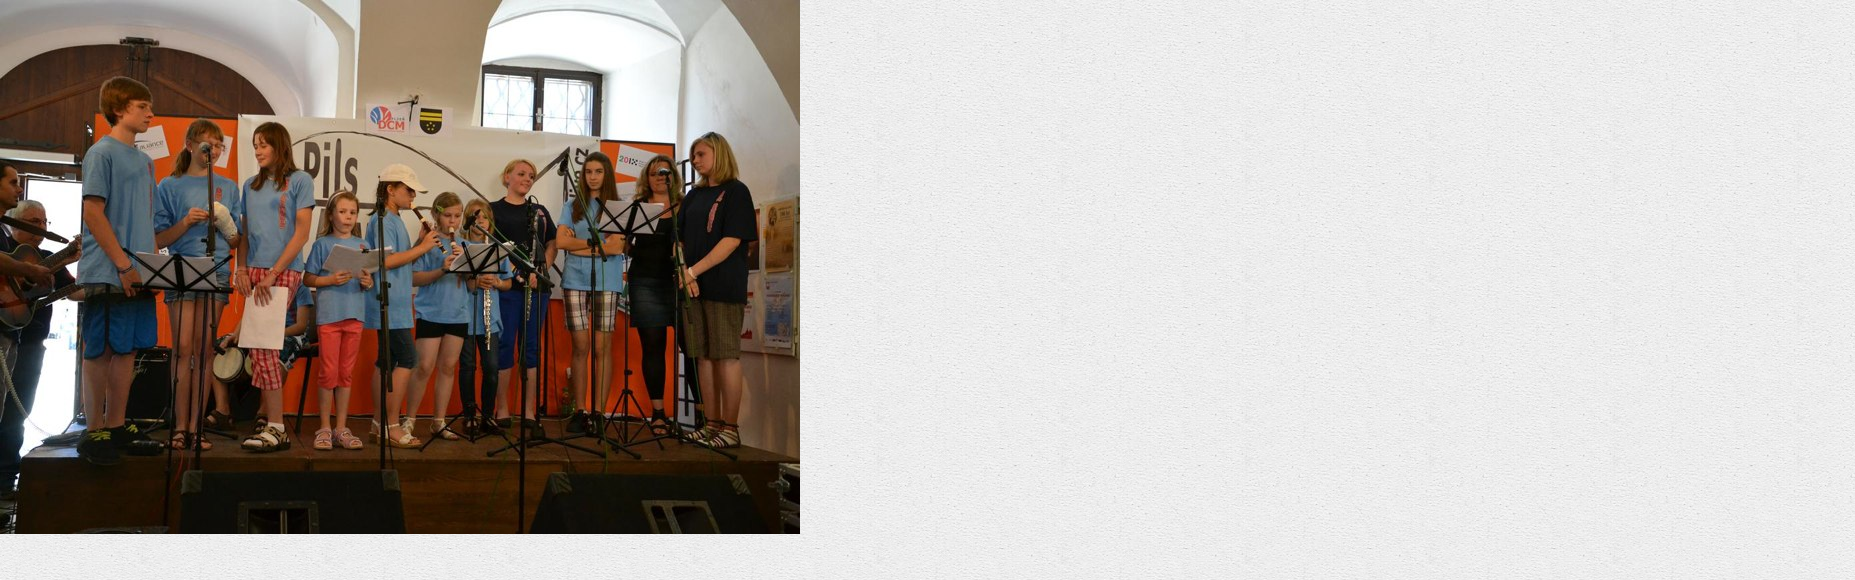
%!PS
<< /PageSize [1855 580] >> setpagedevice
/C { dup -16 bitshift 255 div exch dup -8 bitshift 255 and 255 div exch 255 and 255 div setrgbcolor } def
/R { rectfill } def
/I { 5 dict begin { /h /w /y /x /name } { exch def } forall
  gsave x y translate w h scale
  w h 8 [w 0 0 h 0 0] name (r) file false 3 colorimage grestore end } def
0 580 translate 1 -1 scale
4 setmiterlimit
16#FFFFFF C
0 0 1855 580 R
(1.rgb) 0 0 1855 580 I
(2.rgb) 0 0 800 534 I
showpage
